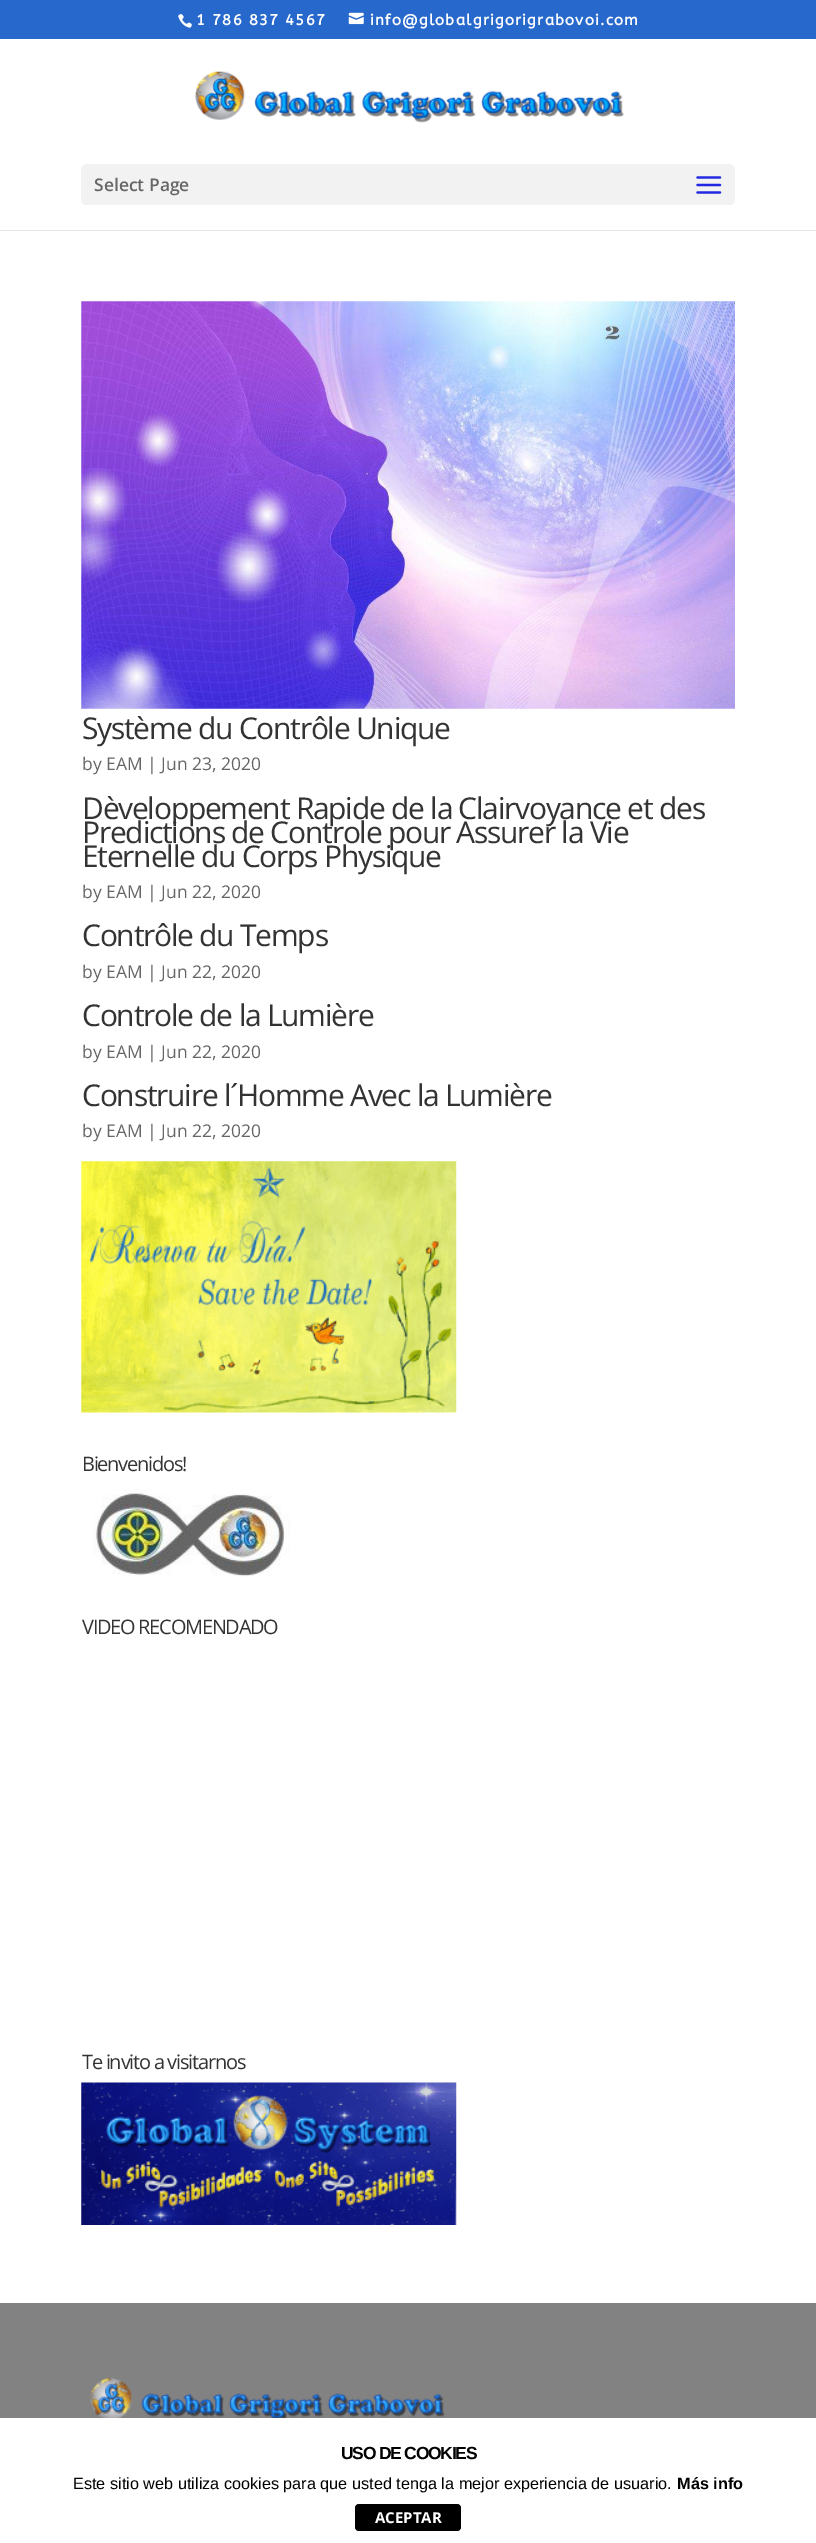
%!PS
<< /PageSize [816 2543] >> setpagedevice
/m/moveto load def
/f/fill load def
/C { dup -16 bitshift 255 div exch dup -8 bitshift 255 and 255 div exch 255 and 255 div setrgbcolor } def
/F { [ exch dup neg 0 0 3 -1 roll 0 0 ] selectfont } def
/T { moveto show } def
/R { rectfill } def
/Q { 5 dict begin { /r /h /w /y /x } { exch def } forall
  x r add y moveto x w add y 2 copy h add r arct x w add y h add x 1 index r arct
  x y h add x y r arct x y 2 copy exch w add exch r arct closepath end } def
/I { 5 dict begin { /h /w /y /x /name } { exch def } forall
  gsave x y translate w h scale
  w h 8 [w 0 0 h 0 0] name (r) file false 3 colorimage grestore end } def
0 2543 translate 1 -1 scale
4 setmiterlimit
16#FFFFFF C
0 0 816 2543 R
16#2668CC C
0 0 816 39 R
(1.rgb) 178 14 14 14 I
/ABeeZee-Bold 15 F
16#FFFFFF C
196 25 m 1.25 0 (1 786 837 4567) ashow
(2.rgb) 348 12 16 13 I
370 25 m 1.25 0 (info@globalgrigorigrabovoi.com) ashow
16#E6E6E6 C
0 230 816 1 R
(3.rgb) 195 71 429 52 I
16#F2F2F2 C
81 164 654 41 6 Q f
/OpenSans-SemiBold 17.5 F
16#666666 C
(Select Page) 94 191 T
(4.rgb) 696 176 26 18 I
(5.rgb) 81 301 654 408 I
/OpenSans-Regular 30 F
16#333333 C
82 739 m -1.25 0 (Système du Contrôle Unique) ashow
/OpenSans-Regular 17.5 F
16#666666 C
(by EAM | Jun 23, 2020) 82 770 T
/OpenSans-Regular 30 F
16#333333 C
82 819 m -1.25 0 (Dèveloppement Rapide de la Clairvoyance et des) ashow
82 843 m -1.25 0 (Predictions de Controle pour Assurer la Vie) ashow
82 867 m -1.25 0 (Eternelle du Corps Physique) ashow
/OpenSans-Regular 17.5 F
16#666666 C
(by EAM | Jun 22, 2020) 82 898 T
/OpenSans-Regular 30 F
16#333333 C
82 946 m -1.25 0 (Contrôle du Temps) ashow
/OpenSans-Regular 17.5 F
16#666666 C
(by EAM | Jun 22, 2020) 82 978 T
/OpenSans-Regular 30 F
16#333333 C
82 1026 m -1.25 0 (Controle de la Lumière) ashow
/OpenSans-Regular 17.5 F
16#666666 C
(by EAM | Jun 22, 2020) 82 1058 T
/OpenSans-Regular 30 F
16#333333 C
82 1106 m -1.25 0 (Construire l´Homme Avec la Lumière) ashow
/OpenSans-Regular 17.5 F
16#666666 C
(by EAM | Jun 22, 2020) 82 1137 T
(6.rgb) 81 1161 376 252 I
/OpenSans-Regular 20 F
16#333333 C
82 1471 m -1.25 0 (Bienvenidos!) ashow
(7.rgb) 93 1489 198 88 I
82 1634 m -1.25 0 (VIDEO RECOMENDADO) ashow
82 2069 m -1.25 0 (Te invito a visitarnos) ashow
(8.rgb) 81 2082 376 143 I
16#828282 C
0 2303 816 115 R
(9.rgb) 90 2377 355 41 I
/LiberationSans-Bold 17.5 F
16#000000 C
341 2459 m -1.25 0 (USO DE COOKIES) ashow
/LiberationSans-Regular 16.25 F
(Este sitio web utiliza cookies para que usted tenga la mejor experiencia de usuario.) 73 2489 T
/LiberationSans-Bold 16.25 F
(Más info) 677 2489 T
355 2504 106 27 4 Q f
/OpenSans-Bold 15 F
16#FFFFFF C
(ACEPTAR) 375 2523 T
showpage
